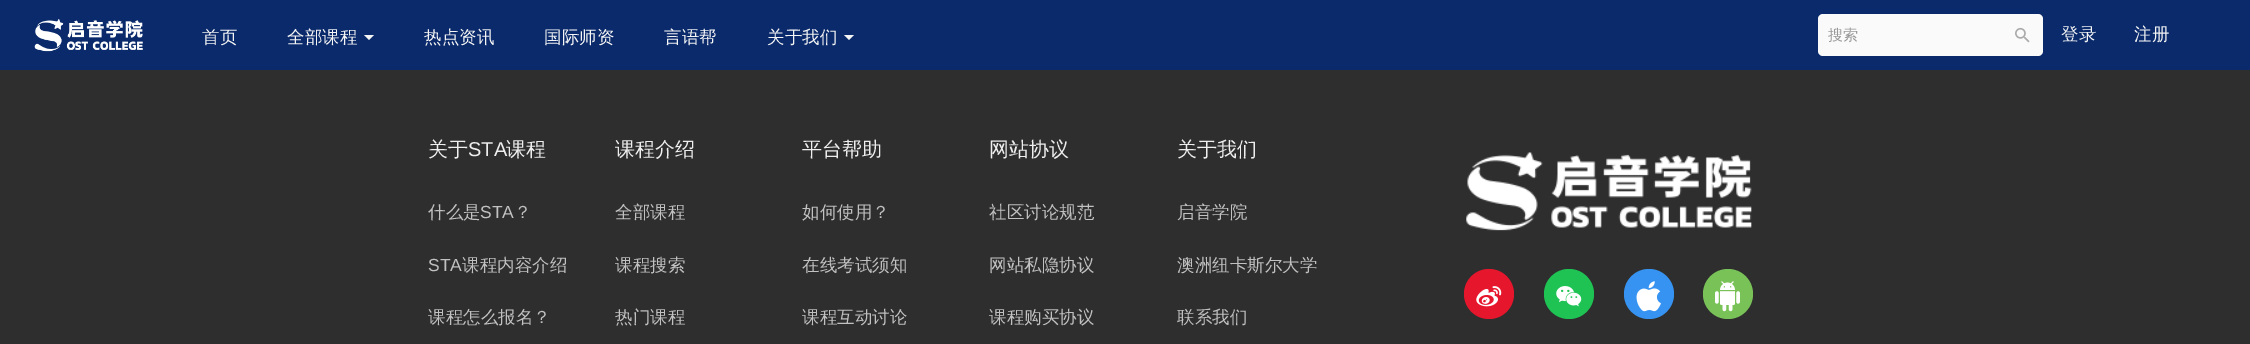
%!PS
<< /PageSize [2250 344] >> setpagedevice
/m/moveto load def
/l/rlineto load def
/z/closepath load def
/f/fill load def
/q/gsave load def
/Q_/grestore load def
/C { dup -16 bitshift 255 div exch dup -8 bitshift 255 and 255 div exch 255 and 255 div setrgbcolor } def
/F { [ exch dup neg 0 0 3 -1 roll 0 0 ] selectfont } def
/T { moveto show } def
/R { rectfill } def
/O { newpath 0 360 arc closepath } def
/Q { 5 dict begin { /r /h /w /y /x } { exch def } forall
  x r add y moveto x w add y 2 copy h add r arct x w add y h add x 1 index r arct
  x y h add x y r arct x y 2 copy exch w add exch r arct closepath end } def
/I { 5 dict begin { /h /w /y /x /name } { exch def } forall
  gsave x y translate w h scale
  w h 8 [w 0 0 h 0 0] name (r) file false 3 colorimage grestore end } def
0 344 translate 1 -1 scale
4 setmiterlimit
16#2E2E2E C
0 0 2250 344 R
16#0A2A6B C
0 0 2250 70 R
(1.rgb) 34 19 109 33 I
/WenQuanYiZenHei-Medium 17.5 F
16#F5F5F5 C
(首页) 202 43 T
(全部课程) 287 43 T
364 35 m 10 0 l -5 5 l z f
(热点资讯) 424 43 T
(国际师资) 544 43 T
(言语帮) 664 43 T
(关于我们) 767 43 T
844 35 m 10 0 l -5 5 l z f
16#FAFAFA C
1818 14 225 42 5 Q f
q
1828 25 180 21 rectclip
/WenQuanYiZenHei-Medium 15 F
16#999999 C
(搜索) 1828 40 T
Q_
(2.rgb) 2015 27 15 16 I
16#F5F5F5 C
(登录) 2061 40 T
(注册) 2134 40 T
/WenQuanYiZenHei-Medium 20 F
16#EEEEEE C
(关于) 428 156 T
/LiberationSans-Regular 20 F
(STA) 468 156 T
/WenQuanYiZenHei-Medium 20 F
(课程) 506 156 T
/WenQuanYiZenHei-Medium 17.5 F
16#C1C1C1 C
(什么是) 428 218 T
/LiberationSans-Regular 17.5 F
(STA) 480 218 T
/WenQuanYiZenHei-Medium 17.5 F
(？) 514 218 T
/LiberationSans-Regular 17.5 F
(STA) 428 271 T
/WenQuanYiZenHei-Medium 17.5 F
(课程内容介绍) 462 271 T
(课程怎么报名？) 428 323 T
/WenQuanYiZenHei-Medium 20 F
16#EEEEEE C
(课程介绍) 615 156 T
/WenQuanYiZenHei-Medium 17.5 F
16#C1C1C1 C
(全部课程) 615 218 T
(课程搜索) 615 271 T
(热门课程) 615 323 T
/WenQuanYiZenHei-Medium 20 F
16#EEEEEE C
(平台帮助) 802 156 T
/WenQuanYiZenHei-Medium 17.5 F
16#C1C1C1 C
(如何使用？) 802 218 T
(在线考试须知) 802 271 T
(课程互动讨论) 802 323 T
/WenQuanYiZenHei-Medium 20 F
16#EEEEEE C
(网站协议) 989 156 T
/WenQuanYiZenHei-Medium 17.5 F
16#C1C1C1 C
(社区讨论规范) 989 218 T
(网站私隐协议) 989 271 T
(课程购买协议) 989 323 T
/WenQuanYiZenHei-Medium 20 F
16#EEEEEE C
(关于我们) 1177 156 T
/WenQuanYiZenHei-Medium 17.5 F
16#C1C1C1 C
(启音学院) 1177 218 T
(澳洲纽卡斯尔大学) 1177 271 T
(联系我们) 1177 323 T
(3.rgb) 1466 152 286 79 I
16#E6162D C
1489 294 25 O f
(4.rgb) 1476 286 26 21 I
16#1EC354 C
1569 294 25 O f
(5.rgb) 1556 286 26 21 I
16#3793F1 C
1649 294 25 O f
(6.rgb) 1636 281 25 31 I
16#78C257 C
1728 294 25 O f
(7.rgb) 1715 281 25 31 I
showpage
